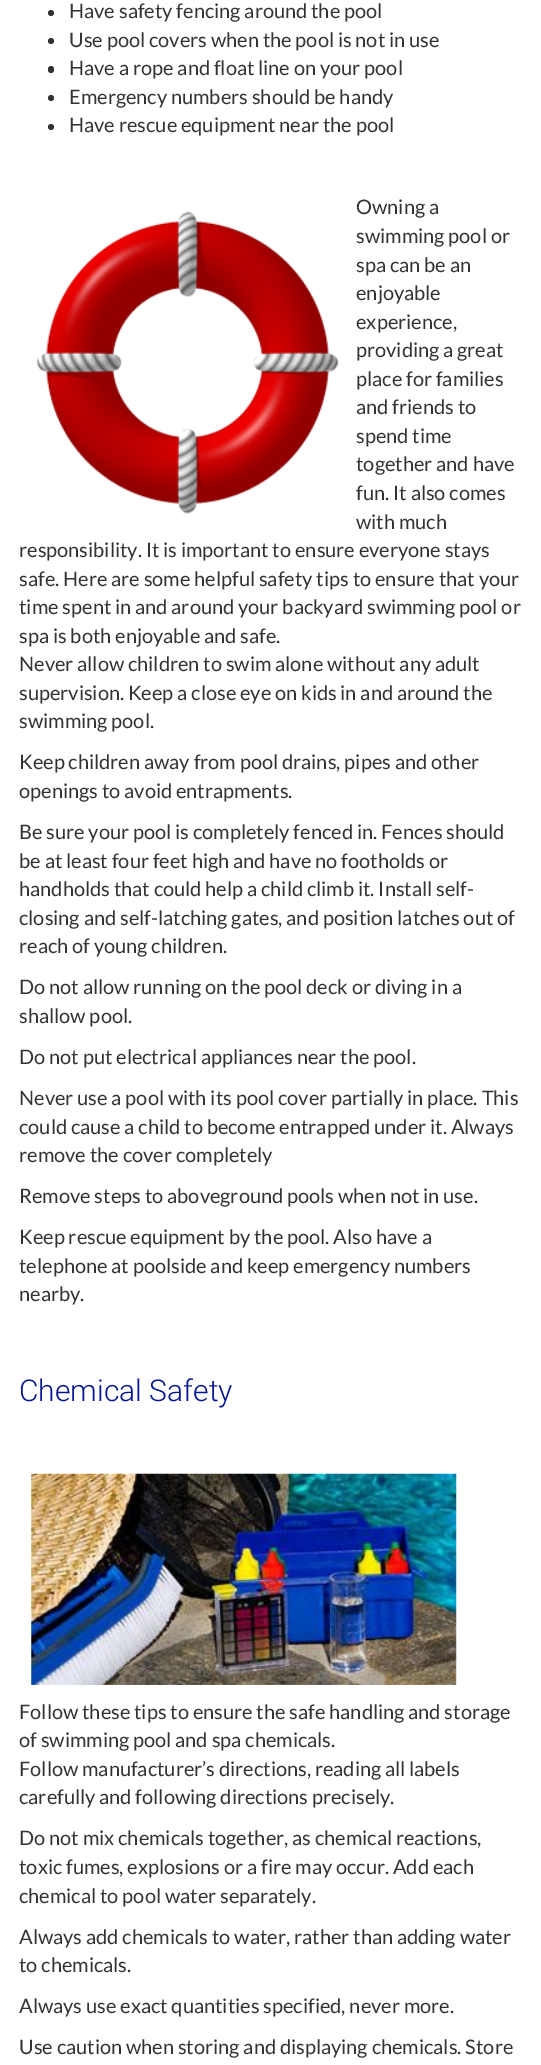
%!PS
<< /PageSize [541 2065] >> setpagedevice
/f/fill load def
/C { dup -16 bitshift 255 div exch dup -8 bitshift 255 and 255 div exch 255 and 255 div setrgbcolor } def
/F { [ exch dup neg 0 0 3 -1 roll 0 0 ] selectfont } def
/T { moveto show } def
/R { rectfill } def
/O { newpath 0 360 arc closepath } def
/Q { 5 dict begin { /r /h /w /y /x } { exch def } forall
  x r add y moveto x w add y 2 copy h add r arct x w add y h add x 1 index r arct
  x y h add x y r arct x y 2 copy exch w add exch r arct closepath end } def
/I { 5 dict begin { /h /w /y /x /name } { exch def } forall
  gsave x y translate w h scale
  w h 8 [w 0 0 h 0 0] name (r) file false 3 colorimage grestore end } def
0 2065 translate 1 -1 scale
4 setmiterlimit
16#FFFFFF C
0 0 541 2065 R
16#333333 C
51 13 3 O f
/Lato-Regular 20 F
(Have safety fencing around the pool) 69 18 T
51 41 3 O f
(Use pool covers when the pool is not in use) 69 47 T
48 66 6 7 3 Q f
(Have a rope and float line on your pool) 69 75 T
51 98 3 O f
(Emergency numbers should be handy) 69 104 T
51 127 3 O f
(Have rescue equipment near the pool) 69 132 T
(Owning a) 356 214 T
(1.rgb) 36 211 303 303 I
(swimming pool or) 356 243 T
(spa can be an) 356 272 T
(enjoyable) 356 300 T
(experience,) 356 329 T
(providing a great) 356 357 T
(place for families) 356 386 T
(and friends to) 356 414 T
(spend time) 356 443 T
(together and have) 356 471 T
(fun. It also comes) 356 500 T
(with much) 356 529 T
(responsibility. It is important to ensure everyone stays) 19 557 T
(safe. Here are some helpful safety tips to ensure that your) 19 586 T
(time spent in and around your backyard swimming pool or) 19 614 T
(spa is both enjoyable and safe.) 19 643 T
(Never allow children to swim alone without any adult) 19 671 T
(supervision. Keep a close eye on kids in and around the) 19 700 T
(swimming pool.) 19 728 T
(Keep children away from pool drains, pipes and other) 19 769 T
(openings to avoid entrapments.) 19 798 T
(Be sure your pool is completely fenced in. Fences should) 19 839 T
(be at least four feet high and have no footholds or) 19 868 T
(handholds that could help a child climb it. Install self-) 19 896 T
(closing and self-latching gates, and position latches out of) 19 925 T
(reach of young children.) 19 953 T
(Do not allow running on the pool deck or diving in a) 19 994 T
(shallow pool.) 19 1023 T
(Do not put electrical appliances near the pool.) 19 1064 T
(Never use a pool with its pool cover partially in place. This) 19 1105 T
(could cause a child to become entrapped under it. Always) 19 1134 T
(remove the cover completely) 19 1162 T
(Remove steps to aboveground pools when not in use.) 19 1203 T
(Keep rescue equipment by the pool. Also have a) 19 1244 T
(telephone at poolside and keep emergency numbers) 19 1273 T
(nearby.) 19 1301 T
/Roboto-Light 30 F
16#051491 C
(Chemical Safety) 19 1401 T
(2.rgb) 31 1473 426 212 I
/Lato-Regular 20 F
16#333333 C
(Follow these tips to ensure the safe handling and storage) 19 1719 T
(of swimming pool and spa chemicals.) 19 1747 T
(Follow manufacturer’s directions, reading all labels) 19 1776 T
(carefully and following directions precisely.) 19 1804 T
(Do not mix chemicals together, as chemical reactions,) 19 1845 T
(toxic fumes, explosions or a fire may occur. Add each) 19 1874 T
(chemical to pool water separately.) 19 1903 T
(Always add chemicals to water, rather than adding water) 19 1944 T
(to chemicals.) 19 1972 T
(Always use exact quantities specified, never more.) 19 2013 T
(Use caution when storing and displaying chemicals. Store) 19 2054 T
showpage
